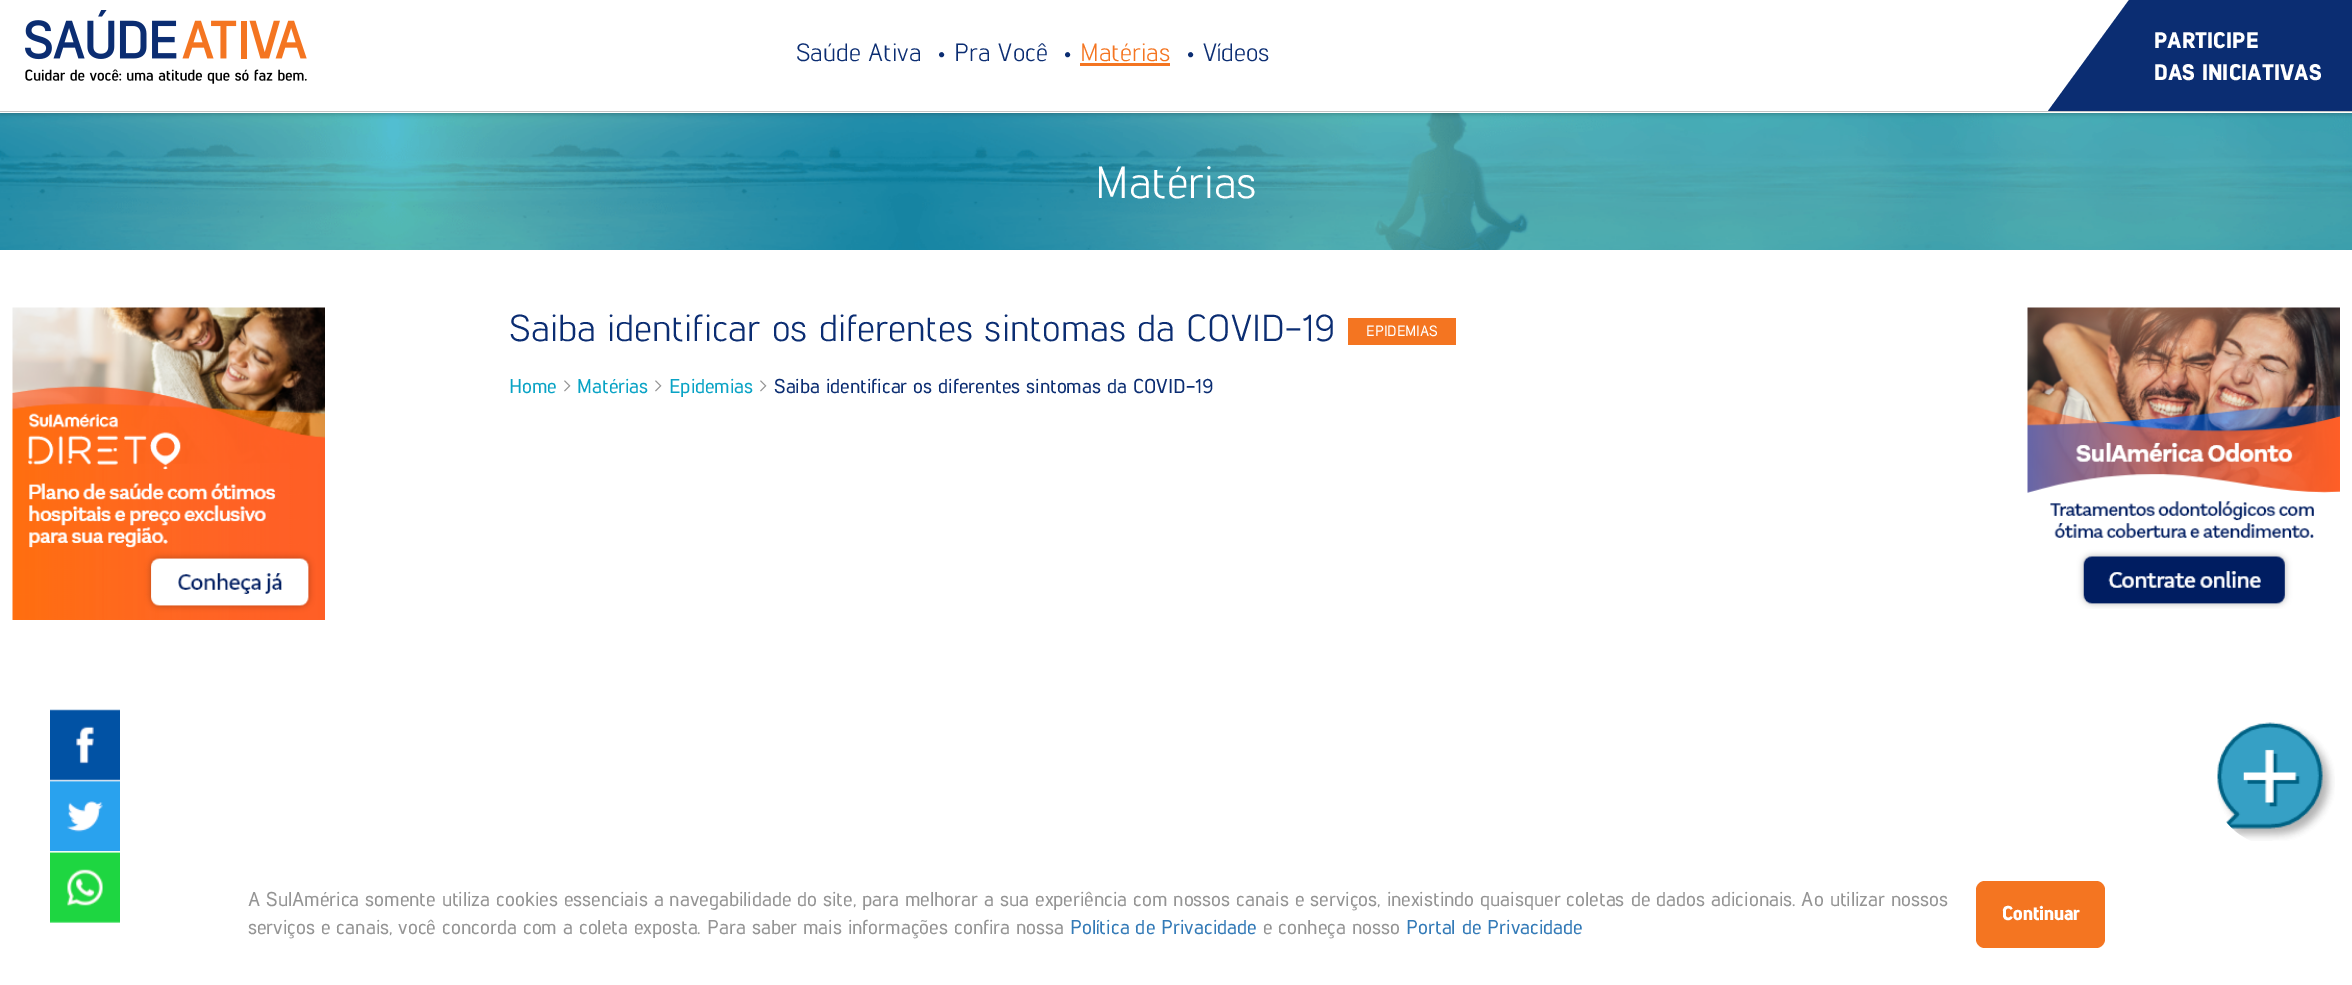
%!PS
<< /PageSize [2352 985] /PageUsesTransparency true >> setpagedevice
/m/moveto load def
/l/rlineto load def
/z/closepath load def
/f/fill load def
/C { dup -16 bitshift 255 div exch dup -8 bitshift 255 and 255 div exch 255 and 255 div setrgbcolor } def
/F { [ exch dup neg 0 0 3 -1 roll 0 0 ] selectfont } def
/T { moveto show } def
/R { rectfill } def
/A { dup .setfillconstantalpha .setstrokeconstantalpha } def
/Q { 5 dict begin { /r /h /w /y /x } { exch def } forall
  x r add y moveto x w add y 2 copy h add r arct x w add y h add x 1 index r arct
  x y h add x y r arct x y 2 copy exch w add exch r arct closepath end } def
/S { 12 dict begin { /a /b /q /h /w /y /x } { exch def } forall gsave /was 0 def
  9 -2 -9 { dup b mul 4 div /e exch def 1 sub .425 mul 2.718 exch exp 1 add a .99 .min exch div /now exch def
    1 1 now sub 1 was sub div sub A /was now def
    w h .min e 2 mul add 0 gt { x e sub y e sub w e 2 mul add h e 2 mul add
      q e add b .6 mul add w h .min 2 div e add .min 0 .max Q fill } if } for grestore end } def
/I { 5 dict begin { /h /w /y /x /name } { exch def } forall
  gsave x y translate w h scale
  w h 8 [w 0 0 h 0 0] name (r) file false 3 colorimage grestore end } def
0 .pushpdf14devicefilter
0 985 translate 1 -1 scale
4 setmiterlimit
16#FFFFFF C
0 0 2352 985 R
(2.rgb) 0 113 2352 137 I
16#000000 C
0 1 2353 113 0 2.5 .25 S
16#FFFFFF C
0 0 2352 113 R
16#C5C5C5 C
0 111 2352 1 R
(1.rgb) 25 10 282 74 I
/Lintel-Regular 25 F
16#0B2D72 C
(Saúde Ativa) 796 61 T
/LiberationSans-Regular 12 F
(●) 938 58 T
/Lintel-Regular 25 F
(Pra Você) 954 61 T
/LiberationSans-Regular 12 F
(●) 1064 58 T
/Lintel-Regular 25 F
16#F47521 C
(Matérias) 1080 61 T
1080 63 90 3 R
/LiberationSans-Regular 12 F
16#0B2D72 C
(●) 1187 58 T
/Lintel-Regular 25 F
(Vídeos) 1203 61 T
2129 0 223 111 R
2129 0 m 0 111 l -81 0 l z f
/Lintel-Black 22.5 F
16#FFFFFF C
(PARTICIPE) 2154 48 T
(DAS INICIATIVAS) 2154 80 T
/Lintel-Regular 45 F
(Matérias) 1095 198 T
(3.rgb) 12 307 313 313 I
/Lintel-Regular 37.5 F
16#0B2D72 C
(Saiba identificar os diferentes sintomas da COVID-19) 509 341 T
16#F47521 C
1348 318 108 27 R
/Lintel-Medium 15 F
16#FFFFFF C
(EPIDEMIAS) 1366 336 T
/Lintel-Medium 20 F
16#09A3C5 C
(Home) 509 393 T
16#949494 C
(>) 563 393 T
16#09A3C5 C
(Matérias) 577 393 T
16#949494 C
(>) 654 393 T
16#09A3C5 C
(Epidemias) 669 393 T
16#949494 C
(>) 759 393 T
16#0B2D72 C
(Saiba identificar os diferentes sintomas da COVID-19) 774 393 T
(4.rgb) 2027 307 313 302 I
(5.rgb) 50 709 70 72 I
(6.rgb) 50 781 70 70 I
(7.rgb) 50 851 70 72 I
(8.rgb) 2217 722 118 119 I
16#949494 C
(A SulAmérica somente utiliza cookies essenciais a navegabilidade do site, para melhorar a sua experiência com nossos canais e serviços, inexistindo quaisquer coletas de dados adicionais. Ao utilizar nossos) 248 906 T
(serviços e canais, você concorda com a coleta exposta. Para saber mais informações confira nossa) 248 934 T
16#337AB7 C
(Política de Privacidade) 1070 934 T
16#949494 C
(e conheça nosso) 1263 934 T
16#337AB7 C
(Portal de Privacidade) 1406 934 T
16#F47521 C
1976 881 129 67 9 Q f
/Lintel-Black 20 F
16#FFFFFF C
(Continuar) 2002 920 T
.poppdf14devicefilter showpage
